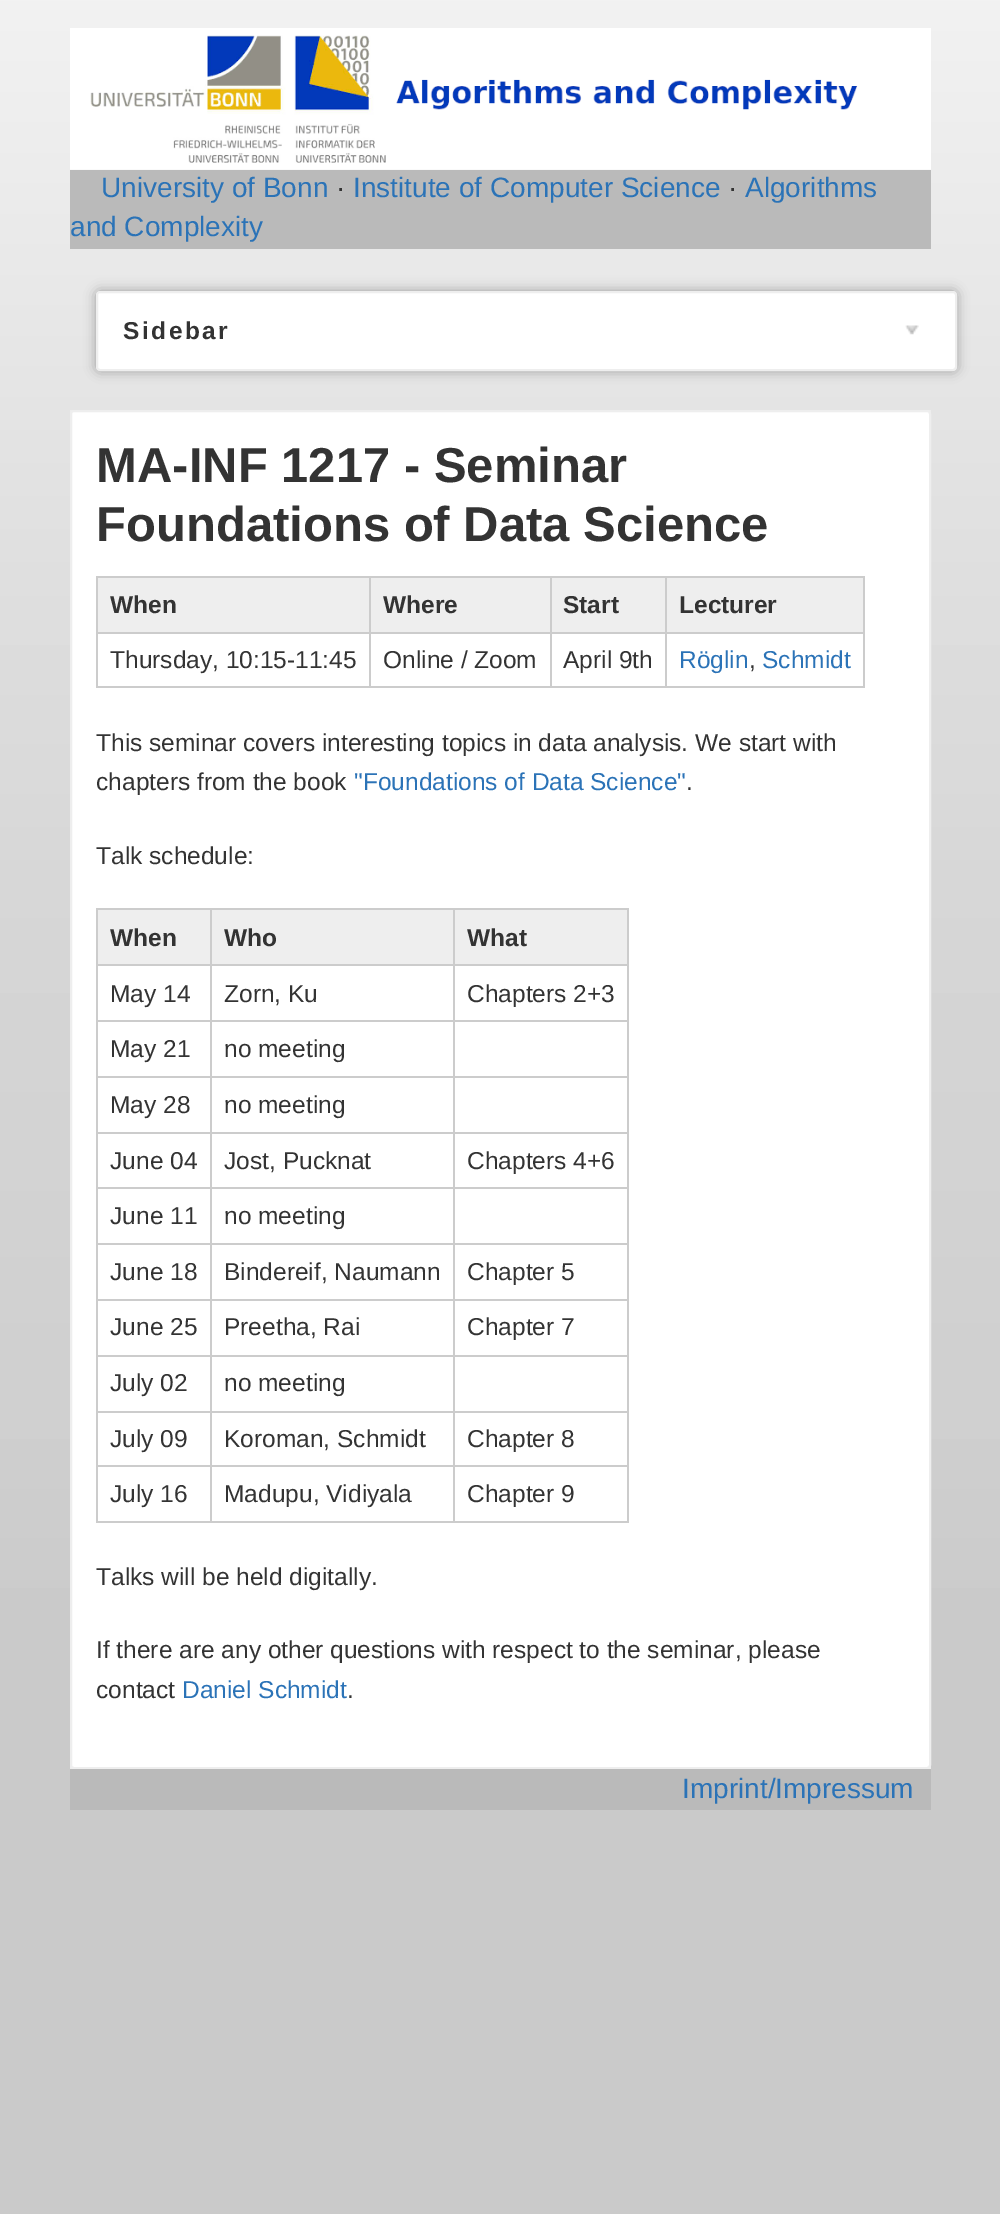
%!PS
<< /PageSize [1000 2214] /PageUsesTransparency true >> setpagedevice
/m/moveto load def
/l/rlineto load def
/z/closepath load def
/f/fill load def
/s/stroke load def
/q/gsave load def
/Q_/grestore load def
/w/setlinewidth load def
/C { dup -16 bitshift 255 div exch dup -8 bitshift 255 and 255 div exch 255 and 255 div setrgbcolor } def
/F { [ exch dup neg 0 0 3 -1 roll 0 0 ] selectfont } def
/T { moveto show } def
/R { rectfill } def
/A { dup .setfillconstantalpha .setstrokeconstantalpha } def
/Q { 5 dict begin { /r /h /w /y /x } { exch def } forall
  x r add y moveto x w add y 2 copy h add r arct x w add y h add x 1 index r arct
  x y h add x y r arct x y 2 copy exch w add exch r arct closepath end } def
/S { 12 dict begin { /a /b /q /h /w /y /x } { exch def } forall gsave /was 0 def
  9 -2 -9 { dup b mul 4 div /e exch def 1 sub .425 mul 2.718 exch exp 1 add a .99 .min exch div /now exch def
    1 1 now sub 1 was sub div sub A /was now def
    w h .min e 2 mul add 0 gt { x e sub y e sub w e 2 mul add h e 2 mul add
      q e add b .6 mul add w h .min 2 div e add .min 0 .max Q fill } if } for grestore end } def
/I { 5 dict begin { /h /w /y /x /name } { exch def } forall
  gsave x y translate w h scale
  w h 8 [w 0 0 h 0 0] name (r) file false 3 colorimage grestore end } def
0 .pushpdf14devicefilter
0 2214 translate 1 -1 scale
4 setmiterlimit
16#CACACA C
0 0 1000 2214 R
q 0 0 m 1000 0 l 0 1588 l -1000 0 l z clip newpath
<< /ShadingType 2 /ColorSpace /DeviceRGB /Coords [0 1848 0 0] /Extend [true true] /Function << /FunctionType 3 /Domain [0 1] /Functions [<< /FunctionType 2 /Domain [0 1] /C0 [.788 .788 .788] /C1 [.792 .792 .792] /N 1 >> << /FunctionType 2 /Domain [0 1] /C0 [.792 .792 .792] /C1 [.816 .816 .816] /N 1 >> << /FunctionType 2 /Domain [0 1] /C0 [.816 .816 .816] /C1 [.839 .839 .839] /N 1 >> << /FunctionType 2 /Domain [0 1] /C0 [.839 .839 .839] /C1 [.871 .871 .871] /N 1 >> << /FunctionType 2 /Domain [0 1] /C0 [.871 .871 .871] /C1 [.949 .949 .949] /N 1 >>] /Bounds [.07 .24 .49 .67] /Encode [0 1 0 1 0 1 0 1 0 1] >> >> shfill Q_
(1.rgb) 70 28 861 142 I
16#BABABA C
70 170 861 79 R
/LiberationSans-Regular 28 F
16#2B73B7 C
(University of Bonn) 101 197 T
16#333333 C
(·) 336 197 T
16#2B73B7 C
(Institute of Computer Science) 353 197 T
16#333333 C
(·) 728 197 T
16#2B73B7 C
(Algorithms) 745 197 T
(and Complexity) 70 236 T
16#999999 C
96 291 861 80 4 6 1 S
16#FFFFFF C
97 292 859 78 3 Q q f Q_
16#EEEEEE C
2 w
s
/LiberationSans-Bold 24.5 F
16#333333 C
123 339 m 2.5 0 (Sidebar) ashow
(2.rgb) 905 325 14 10 I
16#EDEDED C
70 410 861 1359 R
16#FFFFFF C
71 411 859 1357 3 Q q f Q_
16#EEEEEE C
s
/LiberationSans-Bold 49 F
16#333333 C
(MA-INF 1217 - Seminar) 96 482 T
(Foundations of Data Science) 96 541 T
16#CCCCCC C
96 576 769 2 R
863 576 2 112 R
96 686 769 2 R
96 576 2 112 R
16#EEEEEE C
98 578 271 54 R
/LiberationSans-Bold 24.5 F
16#333333 C
(When) 110 613 T
16#EEEEEE C
371 578 179 54 R
16#CCCCCC C
665 632 200 2 R
665 632 2 56 R
550 632 117 2 R
550 632 2 56 R
369 632 182 2 R
369 632 2 56 R
96 632 275 2 R
369 576 2 58 R
16#333333 C
(Where) 383 613 T
16#EEEEEE C
552 578 113 54 R
16#CCCCCC C
550 576 2 58 R
16#333333 C
(Start) 563 613 T
16#EEEEEE C
667 578 196 54 R
16#CCCCCC C
665 576 2 58 R
16#333333 C
(Lecturer) 679 613 T
/LiberationSans-Regular 24.5 F
(Thursday, 10:15-11:45) 110 668 T
(Online / Zoom) 383 668 T
(April 9th) 563 668 T
16#2B73B7 C
(Röglin) 679 668 T
16#333333 C
(,) 749 668 T
16#2B73B7 C
(Schmidt) 762 668 T
16#333333 C
(This seminar covers interesting topics in data analysis. We start with) 96 751 T
(chapters from the book) 96 790 T
16#2B73B7 C
("Foundations of Data Science") 354 790 T
16#333333 C
(.) 686 790 T
(Talk schedule:) 96 864 T
16#CCCCCC C
96 908 532 2 R
627 908 2 615 R
96 1521 532 2 R
96 908 2 615 R
16#EEEEEE C
98 910 112 54 R
/LiberationSans-Bold 24.5 F
16#333333 C
(When) 110 946 T
16#EEEEEE C
212 910 241 54 R
16#CCCCCC C
453 964 175 2 R
453 1020 175 2 R
453 1076 175 2 R
453 1132 175 2 R
453 1187 175 2 R
453 1243 175 2 R
453 1299 175 2 R
453 1355 175 2 R
453 1411 175 2 R
453 1465 175 2 R
453 1465 2 58 R
210 1465 245 2 R
453 1411 2 56 R
210 1411 245 2 R
453 1355 2 57 R
210 1355 245 2 R
453 1299 2 57 R
210 1299 245 2 R
453 1243 2 57 R
210 1243 245 2 R
453 1187 2 57 R
210 1187 245 2 R
453 1132 2 56 R
210 1132 245 2 R
453 1076 2 58 R
210 1076 245 2 R
453 1020 2 58 R
210 1020 245 2 R
453 964 2 58 R
210 964 245 2 R
210 1465 2 58 R
96 1465 116 2 R
210 1411 2 56 R
96 1411 116 2 R
210 1355 2 57 R
96 1355 116 2 R
210 1299 2 57 R
96 1299 116 2 R
210 1243 2 57 R
96 1243 116 2 R
210 1187 2 57 R
96 1187 116 2 R
210 1132 2 56 R
96 1132 116 2 R
210 1076 2 58 R
96 1076 116 2 R
210 1020 2 58 R
96 1020 116 2 R
210 964 2 58 R
96 964 116 2 R
210 908 2 58 R
16#333333 C
(Who) 224 946 T
16#EEEEEE C
455 910 172 54 R
16#CCCCCC C
453 908 2 58 R
16#333333 C
(What) 467 946 T
/LiberationSans-Regular 24.5 F
(May 14) 110 1002 T
(Zorn, Ku) 224 1002 T
(Chapters 2+3) 467 1002 T
(May 21) 110 1057 T
(no meeting) 224 1057 T
(May 28) 110 1113 T
(no meeting) 224 1113 T
(June 04) 110 1169 T
(Jost, Pucknat) 224 1169 T
(Chapters 4+6) 467 1169 T
(June 11) 110 1224 T
(no meeting) 224 1224 T
(June 18) 110 1280 T
(Bindereif, Naumann) 224 1280 T
(Chapter 5) 467 1280 T
(June 25) 110 1335 T
(Preetha, Rai) 224 1335 T
(Chapter 7) 467 1335 T
(July 02) 110 1391 T
(no meeting) 224 1391 T
(July 09) 110 1447 T
(Koroman, Schmidt) 224 1447 T
(Chapter 8) 467 1447 T
(July 16) 110 1502 T
(Madupu, Vidiyala) 224 1502 T
(Chapter 9) 467 1502 T
(Talks will be held digitally.) 96 1585 T
(If there are any other questions with respect to the seminar, please) 96 1658 T
(contact) 96 1698 T
16#2B73B7 C
(Daniel Schmidt) 182 1698 T
16#333333 C
(.) 347 1698 T
16#BABABA C
70 1769 861 41 R
/LiberationSans-Regular 28 F
16#2B73B7 C
(Imprint/Impressum) 682 1798 T
.poppdf14devicefilter showpage
